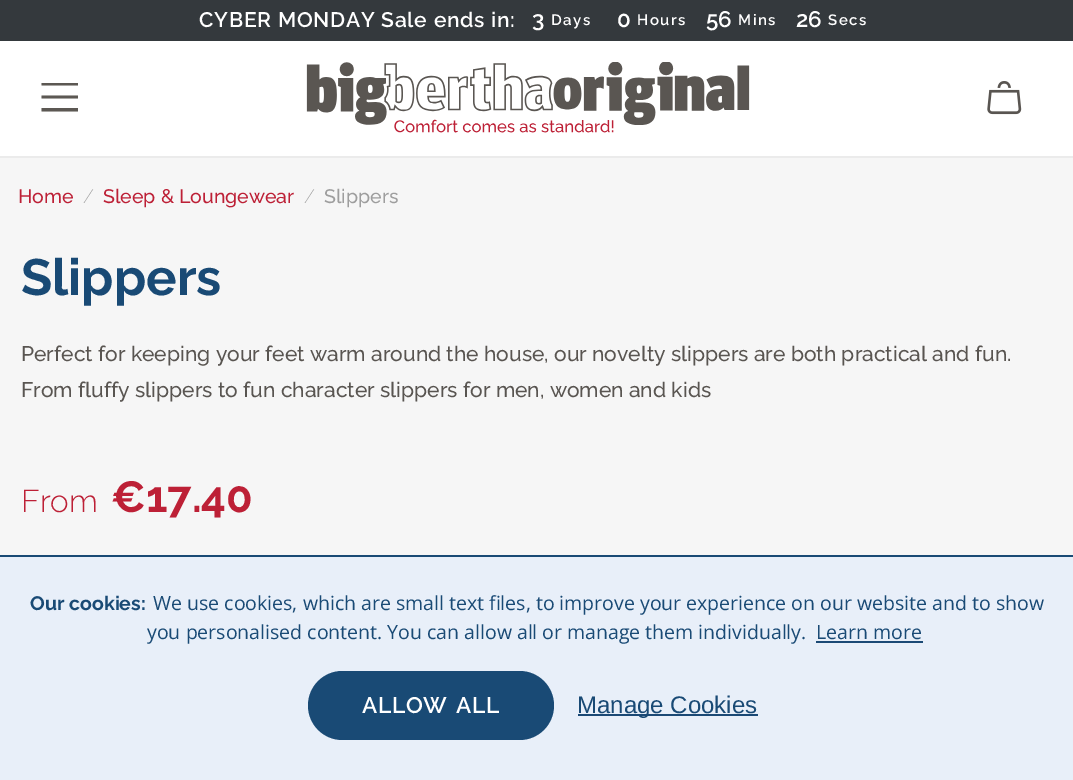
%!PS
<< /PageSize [1073 780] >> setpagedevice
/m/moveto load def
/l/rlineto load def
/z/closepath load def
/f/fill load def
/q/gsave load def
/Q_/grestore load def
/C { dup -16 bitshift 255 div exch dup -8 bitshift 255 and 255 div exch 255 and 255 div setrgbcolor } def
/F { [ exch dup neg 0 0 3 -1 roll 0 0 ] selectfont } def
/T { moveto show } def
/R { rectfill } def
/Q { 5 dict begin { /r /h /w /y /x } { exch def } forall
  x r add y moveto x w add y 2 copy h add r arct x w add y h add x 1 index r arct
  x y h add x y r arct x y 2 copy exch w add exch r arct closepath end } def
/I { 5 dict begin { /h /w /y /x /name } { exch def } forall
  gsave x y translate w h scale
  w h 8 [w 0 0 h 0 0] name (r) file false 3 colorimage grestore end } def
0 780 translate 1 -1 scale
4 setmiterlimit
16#FFFFFF C
0 0 1073 780 R
16#34393D C
0 0 1073 41 R
/Raleway-SemiBold 21 F
16#FFFFFF C
199 27 m .75 0 (CYBER MONDAY Sale ends in:) ashow
/Raleway-SemiBold 22.5 F
(3) 532 27 T
/Raleway-SemiBold 15 F
551 25 m 1.5 0 (Days) ashow
/Raleway-SemiBold 22.5 F
(0) 617 27 T
/Raleway-SemiBold 15 F
637 25 m 1.5 0 (Hours) ashow
/Raleway-SemiBold 22.5 F
(56) 706 27 T
/Raleway-SemiBold 15 F
738 25 m 1.5 0 (Mins) ashow
/Raleway-SemiBold 22.5 F
(26) 796 27 T
/Raleway-SemiBold 15 F
828 25 m 1.5 0 (Secs) ashow
16#EBEBEB C
0 156 1073 2 R
q
41 83 39 30 rectclip
16#5C5853 C
78 85.5 m -36.5 0 l 0 -3 l 36.5 0 l z 78 98.5 m -36.5 0 l 0 -3 l 36.5 0 l z 41.5 111.5 m 36.5 0 l 0 -3.5 l -36.5 0 l z eofill
Q_
(1.rgb) 306 62 444 71 I
(2.rgb) 987 81 35 34 I
16#F6F6F6 C
0 158 1073 397 R
/Raleway-Medium 19.5 F
16#BD2036 C
(Home) 18 203 T
/Raleway-ExtraLight 19.5 F
16#9E9E9E C
(/) 83 203 T
/Raleway-Medium 19.5 F
16#BD2036 C
(Sleep & Loungewear) 103 203 T
/Raleway-ExtraLight 19.5 F
16#9E9E9E C
(/) 304 203 T
/Raleway-Medium 19.5 F
(Slippers) 324 203 T
/Raleway-Bold 51 F
16#194A75 C
(Slippers) 21 295 T
/Raleway-Medium 21 F
16#595551 C
(Perfect for keeping your feet warm around the house, our novelty slippers are both practical and fun.) 21 361 T
(From fluffy slippers to fun character slippers for men, women and kids) 21 397 T
/Raleway-Light 31.5 F
16#BD2036 C
(From) 21 512 T
/Raleway-Bold 43.5 F
(€17.40) 111 512 T
16#E8EFF9 C
0 557 1073 223 R
16#194A75 C
0 555 1073 2 R
/Raleway-Bold 19.5 F
(Our cookies:) 30 610 T
/OpenSans-Regular 19.5 F
(We use cookies, which are small text files, to improve your experience on our website and to show) 153 610 T
(you personalised content. You can allow all or manage them individually.) 147 639 T
(Learn more) 816 639 T
16#1B4975 C
816 641 107 2 R
16#194A75 C
308 671 246 69 34.5 Q f
/Raleway-SemiBold 22.5 F
16#FFFFFF C
362 713 m 2 0 32 .75 0 (ALLOW ALL) awidthshow
16#1B4975 C
578 714 180 2 R
/LiberationSans-Regular 24 F
16#194A75 C
(Manage Cookies) 577 713 T
showpage
